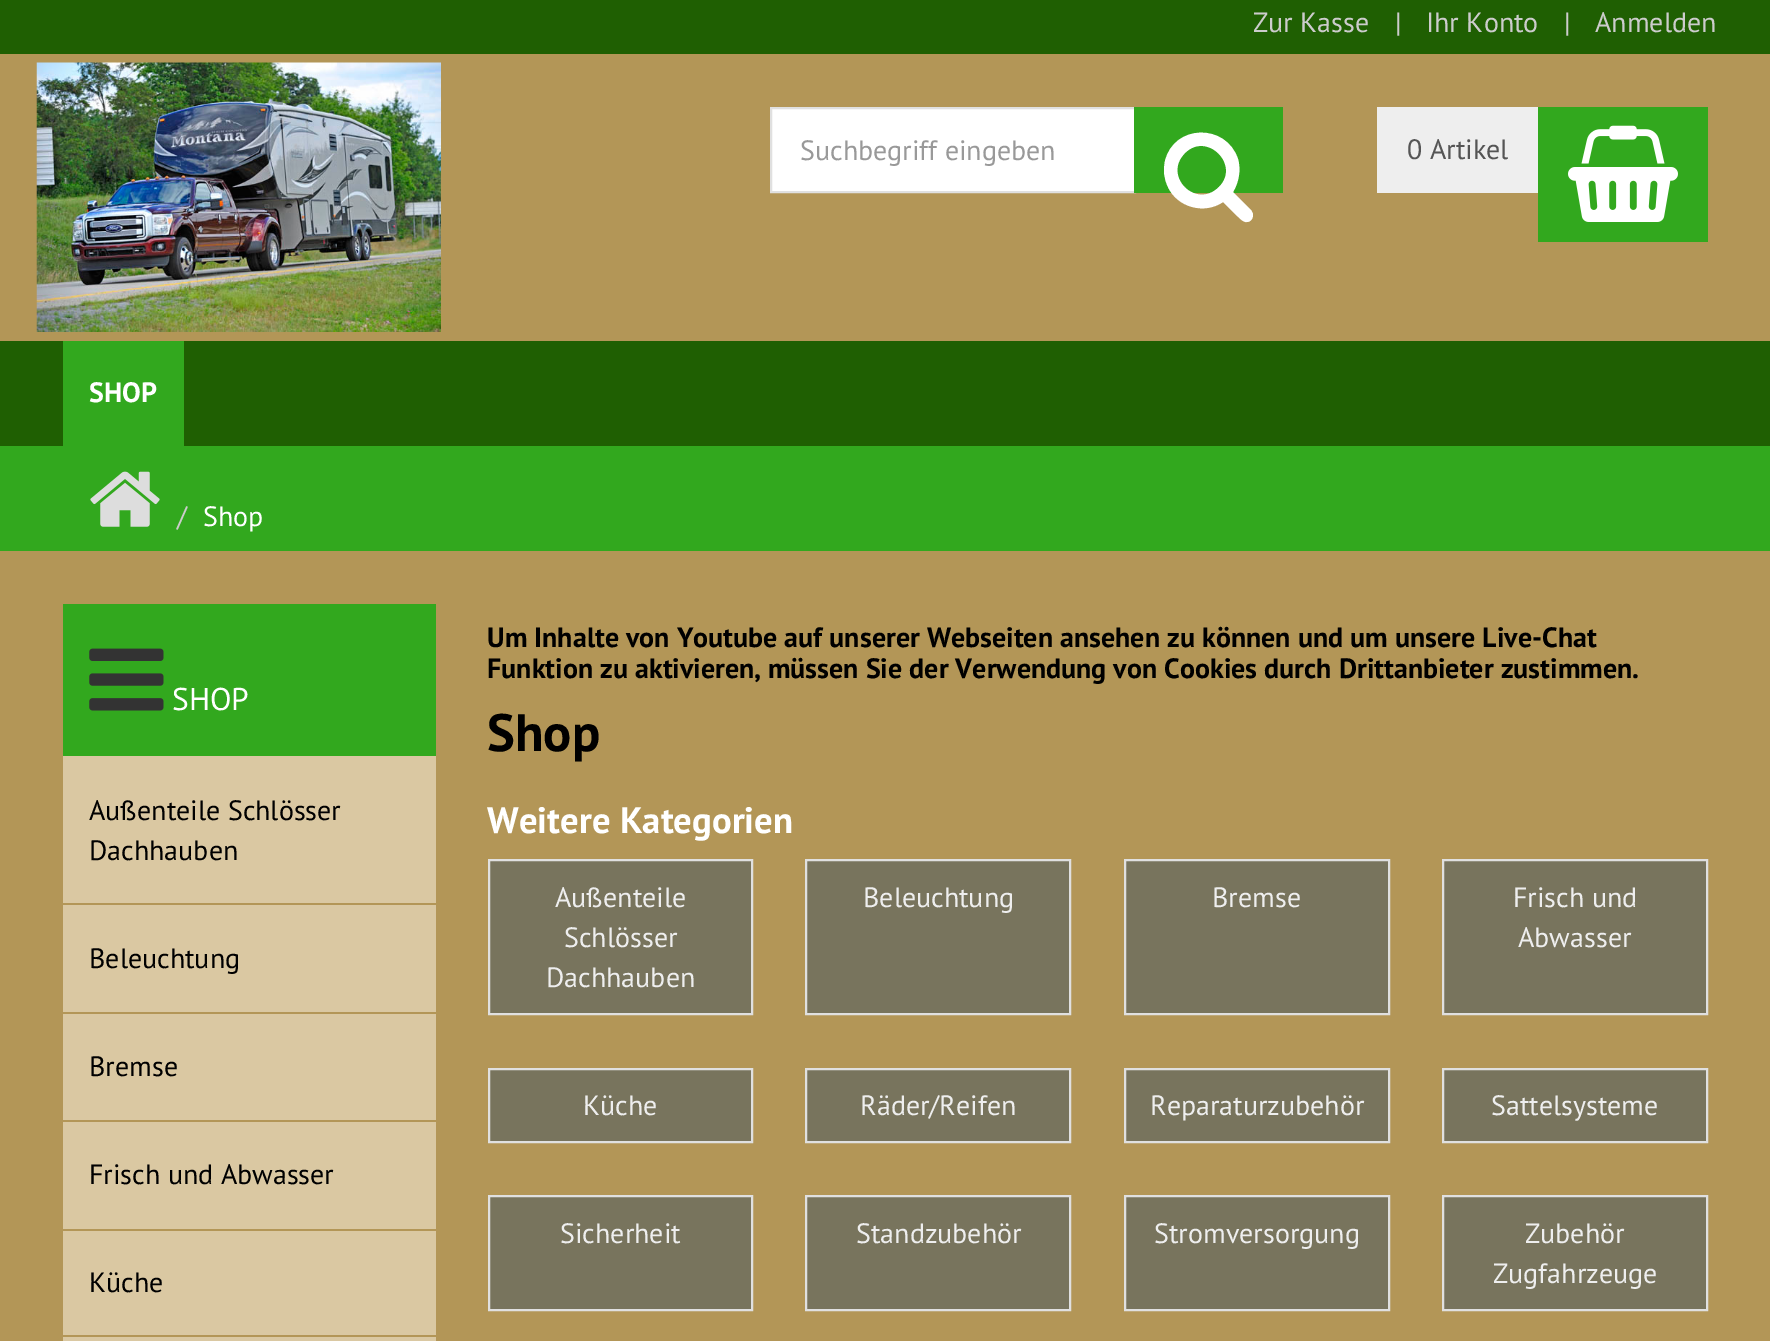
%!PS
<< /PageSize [1770 1341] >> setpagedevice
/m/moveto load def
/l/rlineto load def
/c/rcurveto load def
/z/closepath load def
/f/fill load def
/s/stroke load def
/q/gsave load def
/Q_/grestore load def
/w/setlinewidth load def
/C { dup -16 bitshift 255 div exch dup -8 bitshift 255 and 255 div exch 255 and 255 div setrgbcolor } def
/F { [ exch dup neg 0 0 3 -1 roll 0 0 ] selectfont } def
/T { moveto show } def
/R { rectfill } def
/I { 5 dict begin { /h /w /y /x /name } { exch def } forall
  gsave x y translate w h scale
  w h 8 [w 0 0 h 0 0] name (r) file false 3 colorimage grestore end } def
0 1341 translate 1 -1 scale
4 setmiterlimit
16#B39657 C
0 0 1770 1341 R
16#1F5F02 C
0 0 1770 54 R
/PTSans-Regular 28 F
16#CCCCCC C
(Zur Kasse) 1253 32 T
(|) 1395 32 T
(Ihr Konto) 1426 32 T
(|) 1564 32 T
(Anmelden) 1595 32 T
(1.rgb) 36 62 405 270 I
16#FFFFFF C
771 108 m 364 0 l 0 84 l -364 0 l z q f Q_
16#E0E0E0 C
2 w
s
16#999999 C
(Suchbegriff eingeben) 800 160 T
16#32A81E C
1134 107 149 86 R
16#FFFFFF C
1219 187 m 22 -22 -12 -56 -34 -34 c -23 23 11 57 34 34 c z 1253 215 m 0 2 -1 5 -3 6 c -6 4 -11 -4 -15 -7 c -12 -12 l -19 13 -46 5 -55 -15 c -4 -8 -5 -17 -3 -26 c 9 -37 61 -38 73 -2 c 3 11 1 23 -5 33 c 18 18 l 1 2 2 3 2 5 c z f
16#EEEEEE C
1377 107 161 86 R
16#555555 C
(0 Artikel) 1407 159 T
16#32A81E C
1538 107 170 135 R
(2.rgb) 1568 125 110 97 I
16#1F5F02 C
0 341 1770 105 R
16#32A81E C
63 341 121 105 R
/PTSans-Bold 28 F
16#FFFFFF C
(SHOP) 89 402 T
16#32A81E C
0 446 1770 105 R
(3.rgb) 90 471 70 56 I
/PTSans-Regular 28 F
16#CCCCCC C
(/) 177 526 T
16#FFFFFF C
(Shop) 203 526 T
16#32A81E C
63 604 373 152 R
(4.rgb) 89 648 75 63 I
/PTSans-Regular 31.5 F
16#FFFFFF C
(SHOP) 172 710 T
16#DAC8A2 C
63 756 373 147 R
/PTSans-Regular 28 F
16#000000 C
(Außenteile Schlösser) 89 820 T
(Dachhauben) 89 860 T
16#DAC8A2 C
63 905 373 107 R
16#000000 C
(Beleuchtung) 89 968 T
16#DAC8A2 C
63 1014 373 106 R
16#000000 C
(Bremse) 89 1076 T
16#DAC8A2 C
63 1122 373 107 R
16#000000 C
(Frisch und Abwasser) 89 1184 T
16#DAC8A2 C
63 1231 373 104 R
16#000000 C
(Küche) 89 1292 T
16#DAC8A2 C
63 1337 373 4 R
/PTSans-Bold 28 F
16#000000 C
(Um Inhalte von Youtube auf unserer Webseiten ansehen zu können und um unsere Live-Chat) 487 647 T
(Funktion zu aktivieren, müssen Sie der Verwendung von Cookies durch Drittanbieter zustimmen.) 487 678 T
/PTSans-Bold 52.5 F
(Shop) 487 751 T
/PTSans-Bold 36.75 F
16#FFFFFF C
(Weitere Kategorien) 487 833 T
16#78745D C
489 860 m 263 0 l 0 154 l -263 0 l z q f Q_
16#E0E0E0 C
s
/PTSans-Regular 28 F
16#EEEEEE C
(Außenteile) 555 907 T
(Schlösser) 564 947 T
(Dachhauben) 546 987 T
16#78745D C
806 860 m 264 0 l 0 154 l -264 0 l z q f Q_
16#E0E0E0 C
s
16#EEEEEE C
(Beleuchtung) 863 907 T
16#78745D C
1125 860 m 264 0 l 0 154 l -264 0 l z q f Q_
16#E0E0E0 C
s
16#EEEEEE C
(Bremse) 1212 907 T
16#78745D C
1443 860 m 264 0 l 0 154 l -264 0 l z q f Q_
16#E0E0E0 C
s
16#EEEEEE C
(Frisch und) 1513 907 T
(Abwasser) 1518 947 T
16#78745D C
489 1069 m 263 0 l 0 73 l -263 0 l z q f Q_
16#E0E0E0 C
s
16#EEEEEE C
(Küche) 583 1115 T
16#78745D C
806 1069 m 264 0 l 0 73 l -264 0 l z q f Q_
16#E0E0E0 C
s
16#EEEEEE C
(Räder/Reifen) 860 1115 T
16#78745D C
1125 1069 m 264 0 l 0 73 l -264 0 l z q f Q_
16#E0E0E0 C
s
16#EEEEEE C
(Reparaturzubehör) 1150 1115 T
16#78745D C
1443 1069 m 264 0 l 0 73 l -264 0 l z q f Q_
16#E0E0E0 C
s
16#EEEEEE C
(Sattelsysteme) 1491 1115 T
16#78745D C
489 1196 m 263 0 l 0 114 l -263 0 l z q f Q_
16#E0E0E0 C
s
16#EEEEEE C
(Sicherheit) 560 1243 T
16#78745D C
806 1196 m 264 0 l 0 114 l -264 0 l z q f Q_
16#E0E0E0 C
s
16#EEEEEE C
(Standzubehör) 856 1243 T
16#78745D C
1125 1196 m 264 0 l 0 114 l -264 0 l z q f Q_
16#E0E0E0 C
s
16#EEEEEE C
(Stromversorgung) 1154 1243 T
16#78745D C
1443 1196 m 264 0 l 0 114 l -264 0 l z q f Q_
16#E0E0E0 C
s
16#EEEEEE C
(Zubehör) 1525 1243 T
(Zugfahrzeuge) 1493 1283 T
showpage
